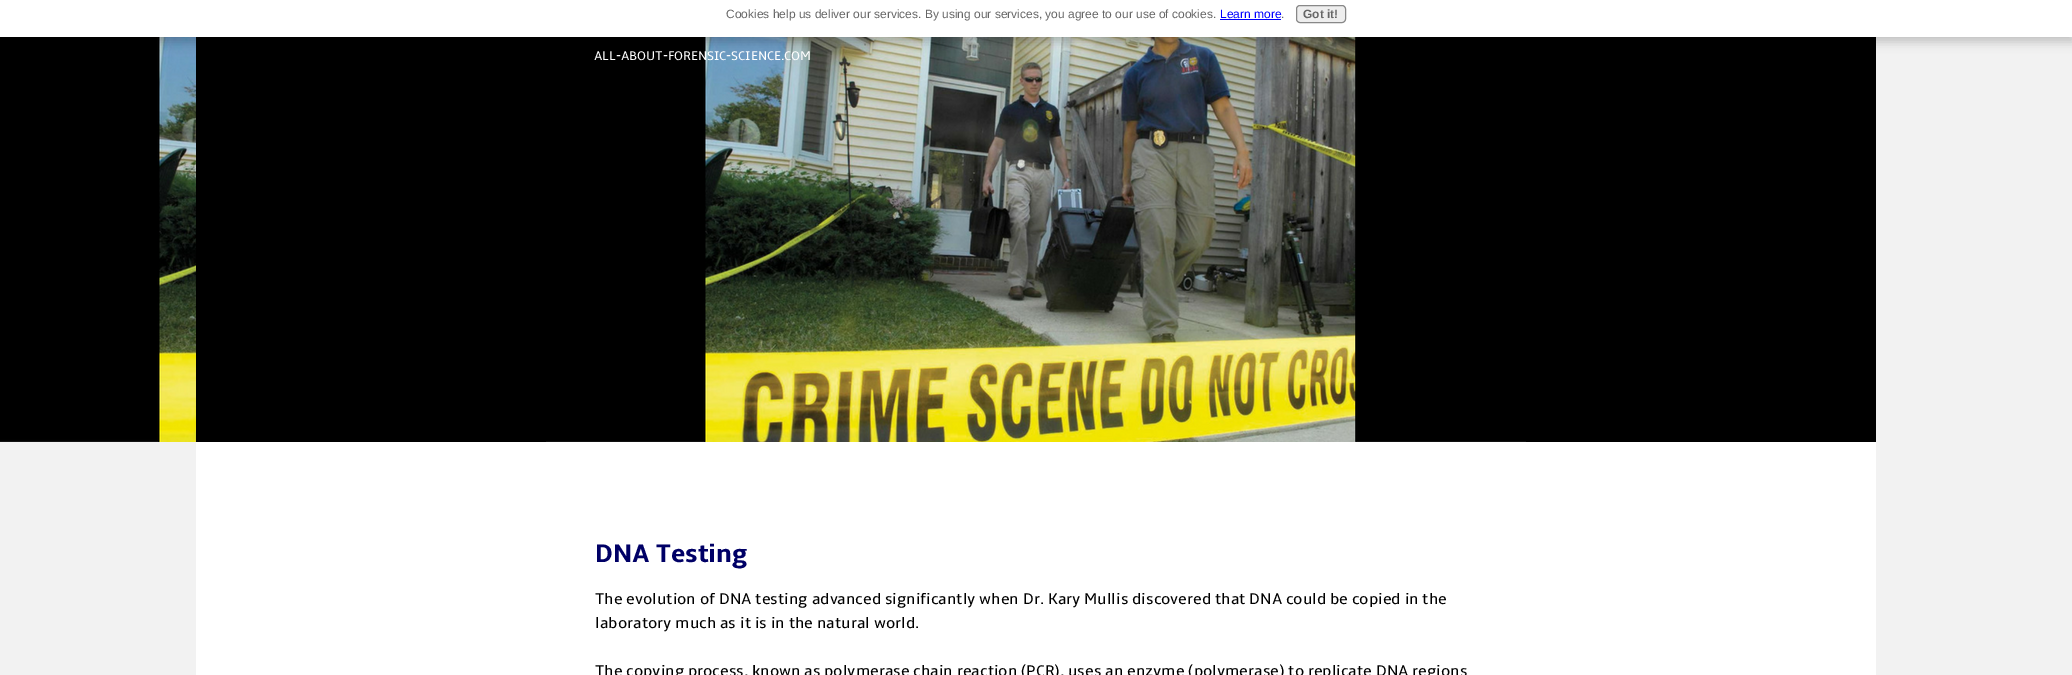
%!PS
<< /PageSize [2072 675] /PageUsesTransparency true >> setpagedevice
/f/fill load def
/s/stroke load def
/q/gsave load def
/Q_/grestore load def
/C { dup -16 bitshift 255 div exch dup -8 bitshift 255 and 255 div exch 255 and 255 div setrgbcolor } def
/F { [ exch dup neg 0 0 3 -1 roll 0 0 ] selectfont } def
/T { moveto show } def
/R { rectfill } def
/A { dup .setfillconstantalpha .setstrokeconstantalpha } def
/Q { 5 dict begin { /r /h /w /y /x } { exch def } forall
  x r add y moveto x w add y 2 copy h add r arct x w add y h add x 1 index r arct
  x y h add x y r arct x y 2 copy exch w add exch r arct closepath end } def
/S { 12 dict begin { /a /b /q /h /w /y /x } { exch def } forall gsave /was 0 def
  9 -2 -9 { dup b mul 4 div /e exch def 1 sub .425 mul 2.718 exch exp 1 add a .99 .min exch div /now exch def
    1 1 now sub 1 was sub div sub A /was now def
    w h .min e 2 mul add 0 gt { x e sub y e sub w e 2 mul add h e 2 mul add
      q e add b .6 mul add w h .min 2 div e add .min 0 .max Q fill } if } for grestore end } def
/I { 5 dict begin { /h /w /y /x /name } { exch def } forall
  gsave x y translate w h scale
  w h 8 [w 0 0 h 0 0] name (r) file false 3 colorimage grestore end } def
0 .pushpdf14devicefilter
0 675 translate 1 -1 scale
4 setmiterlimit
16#F2F2F2 C
0 0 2072 675 R
(1.rgb) 0 37 196 405 I
16#000000 C
196 37 1680 405 R
(2.rgb) 546 37 980 405 I
-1 -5 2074 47 0 5 .2 S
16#FFFFFF C
0 0 2072 37 R
/LiberationSans-Regular 12 F
16#666666 C
(Cookies help us deliver our services. By using our services, you agree to our use of cookies.) 726 18 T
16#0000FF C
(Learn more) 1220 18 T
1220 19 61 1 R
16#666666 C
(.) 1281 18 T
16#EEEEEE C
1296.5 5.5 49 17 3.5 Q q f Q_
16#888888 C
s
/LiberationSans-Bold 12 F
16#666666 C
(Got it!) 1303 18 T
16#FFFFFF C
196 442 1680 233 R
/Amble-Regular 13 F
(ALL-ABOUT-FORENSIC-SCIENCE.COM) 594 60 T
/Amble-Bold 26.5 F
16#000066 C
(DNA Testing) 595 562 T
/Amble-Regular 16 F
16#000000 C
(The evolution of DNA testing advanced significantly when Dr. Kary Mullis discovered that DNA could be copied in the) 595 604 T
(laboratory much as it is in the natural world.) 595 628 T
(The copying process, known as polymerase chain reaction \(PCR\), uses an enzyme \(polymerase\) to replicate DNA regions) 595 676 T
.poppdf14devicefilter showpage
